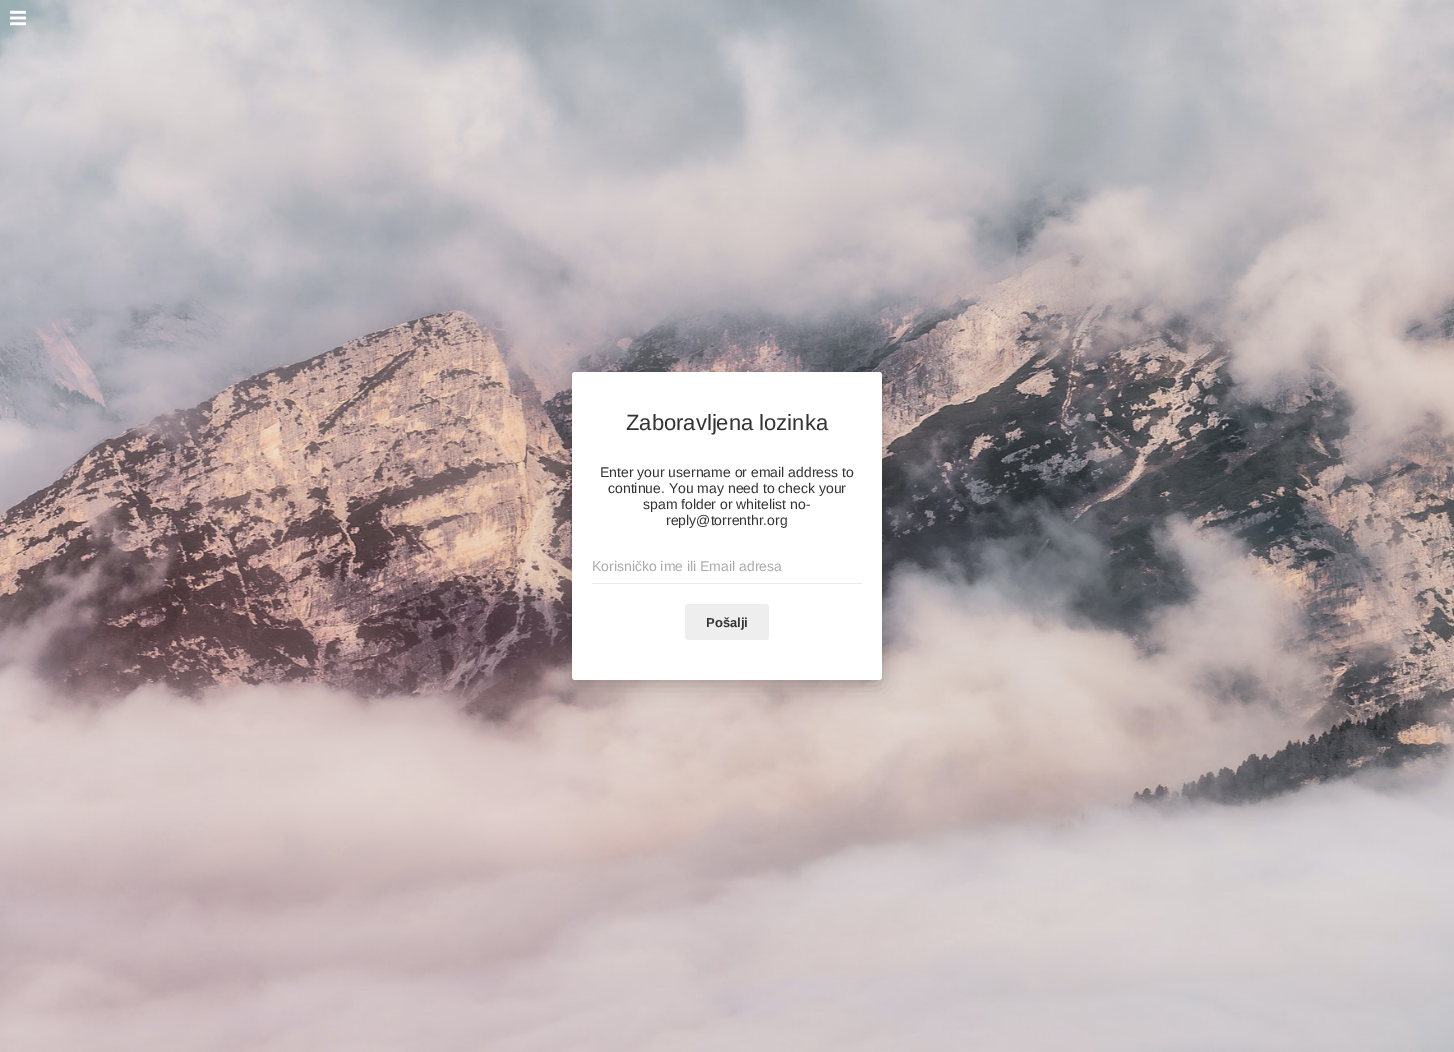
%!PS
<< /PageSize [1454 1052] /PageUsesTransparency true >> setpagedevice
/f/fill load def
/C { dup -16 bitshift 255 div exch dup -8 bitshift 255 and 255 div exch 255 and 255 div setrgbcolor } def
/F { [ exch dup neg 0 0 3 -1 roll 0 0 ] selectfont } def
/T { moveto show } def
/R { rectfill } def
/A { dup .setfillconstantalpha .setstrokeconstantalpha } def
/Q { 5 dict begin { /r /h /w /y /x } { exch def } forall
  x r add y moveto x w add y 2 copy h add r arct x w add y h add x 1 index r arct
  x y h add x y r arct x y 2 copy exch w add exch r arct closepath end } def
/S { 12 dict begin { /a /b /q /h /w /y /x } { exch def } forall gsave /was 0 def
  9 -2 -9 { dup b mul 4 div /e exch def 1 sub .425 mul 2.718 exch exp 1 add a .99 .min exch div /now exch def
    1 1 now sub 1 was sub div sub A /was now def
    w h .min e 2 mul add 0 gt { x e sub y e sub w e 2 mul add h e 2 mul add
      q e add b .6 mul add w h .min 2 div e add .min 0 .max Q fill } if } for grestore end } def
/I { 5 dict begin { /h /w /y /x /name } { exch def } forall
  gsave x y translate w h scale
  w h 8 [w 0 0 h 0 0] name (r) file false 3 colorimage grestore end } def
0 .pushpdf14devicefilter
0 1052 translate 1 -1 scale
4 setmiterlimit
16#FFFFFF C
0 0 1454 1052 R
(1.rgb) 0 0 1454 1052 I
(2.rgb) 10 10 16 16 I
16#000000 C
572 377 310 308 3 10 .2 S
16#FFFFFF C
572 372 310 308 3 Q f
/LiberationSans-Regular 22 F
16#333333 C
(Zaboravljena lozinka) 626 430 T
/LiberationSans-Regular 14 F
(Enter your username or email address to) 600 477 T
(continue. You may need to check your) 608 493 T
(spam folder or whitelist no-) 643 509 T
(reply@torrenthr.org) 666 525 T
16#EBEBEB C
592 583 270 1 R
16#AAAAAA C
(Korisničko ime ili Email adresa) 592 571 T
16#EEEEEE C
685 604 84 36 3 Q f
/LiberationSans-Bold 13 F
16#333333 C
(Pošalji) 706 627 T
.poppdf14devicefilter showpage
